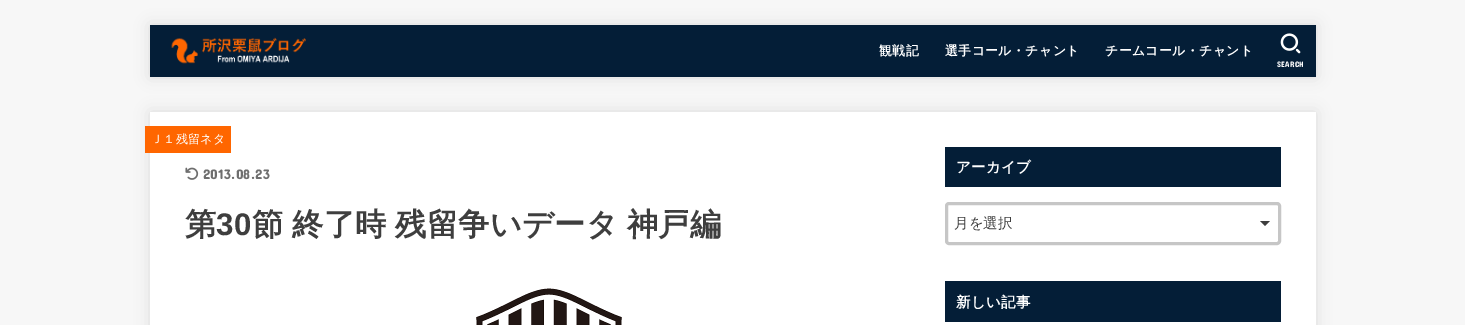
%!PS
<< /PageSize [1465 325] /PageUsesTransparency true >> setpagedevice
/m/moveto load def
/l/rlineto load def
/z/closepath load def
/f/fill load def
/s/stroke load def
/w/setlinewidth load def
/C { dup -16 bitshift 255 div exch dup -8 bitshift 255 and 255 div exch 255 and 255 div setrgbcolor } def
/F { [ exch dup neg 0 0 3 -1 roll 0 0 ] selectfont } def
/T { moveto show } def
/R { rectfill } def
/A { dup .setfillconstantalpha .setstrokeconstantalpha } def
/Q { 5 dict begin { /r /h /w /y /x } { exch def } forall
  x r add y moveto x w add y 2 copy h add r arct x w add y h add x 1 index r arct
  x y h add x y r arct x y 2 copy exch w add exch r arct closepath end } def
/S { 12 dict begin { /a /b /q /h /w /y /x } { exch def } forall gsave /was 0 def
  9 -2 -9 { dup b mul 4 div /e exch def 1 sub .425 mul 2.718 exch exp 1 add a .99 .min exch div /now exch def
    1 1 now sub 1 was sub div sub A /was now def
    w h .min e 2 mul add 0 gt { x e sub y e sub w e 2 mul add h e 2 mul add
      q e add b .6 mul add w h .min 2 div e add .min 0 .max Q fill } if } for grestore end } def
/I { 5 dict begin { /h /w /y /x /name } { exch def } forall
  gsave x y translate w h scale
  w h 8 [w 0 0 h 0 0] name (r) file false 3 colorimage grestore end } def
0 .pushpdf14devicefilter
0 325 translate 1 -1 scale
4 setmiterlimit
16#F7F7F7 C
0 0 1465 325 R
16#666666 C
150 25 1166 52 0 7.5 .2 S
16#041E37 C
150 25 1166 52 R
(1.rgb) 171 37 135 27 I
/WenQuanYiZenHei-Bold 12.8 F
16#FFFFFF C
879 55 m .5 0 (観戦記) ashow
945 55 m .5 0 (選手コール・チャント) ashow
1105 55 m .5 0 (チームコール・チャント) ashow
(2.rgb) 1280 33 21 21 I
/ConcertOne-Regular 8 F
1277 67 m .25 0 (SEARCH) ashow
16#666666 C
150 112 1166 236 0 7.5 .2 S
16#FFFFFF C
150 112 1166 213 R
16#FF6600 C
145 126 86 27 R
/WenQuanYiZenHei-Medium 12 F
16#FFFFFF C
151 143 m .25 0 (Ｊ１残留ネタ) ashow
(3.rgb) 185 167 14 13 I
/ConcertOne-Regular 14 F
16#6E6E6E C
203 179 m .25 0 (2013.08.23) ashow
/WenQuanYiZenHei-Bold 31.25 F
16#3E3E3E C
185 235 m .25 0 (第) ashow
/LiberationSans-Bold 31.25 F
216 235 m .25 0 (30) ashow
/WenQuanYiZenHei-Bold 31.25 F
252 235 m -1 0 32 .25 0 (節 終了時 残留争いデータ 神戸編) awidthshow
(4.rgb) 476 288 146 37 I
16#041E37 C
945 147 336 40 R
/WenQuanYiZenHei-Bold 14.5 F
16#FFFFFF C
956 172 m .25 0 (アーカイブ) ashow
16#3E3E3E C
1260 221 m 10 0 l -5 5 l z f
16#C6C6C6 C
3 w
946.5 203.5 333 40 2.5 Q s
/WenQuanYiZenHei-Medium 14.5 F
16#3E3E3E C
(月を選択) 954 228 T
16#041E37 C
945 281 336 41 R
/WenQuanYiZenHei-Bold 14.5 F
16#FFFFFF C
956 307 m .25 0 (新しい記事) ashow
.poppdf14devicefilter showpage
